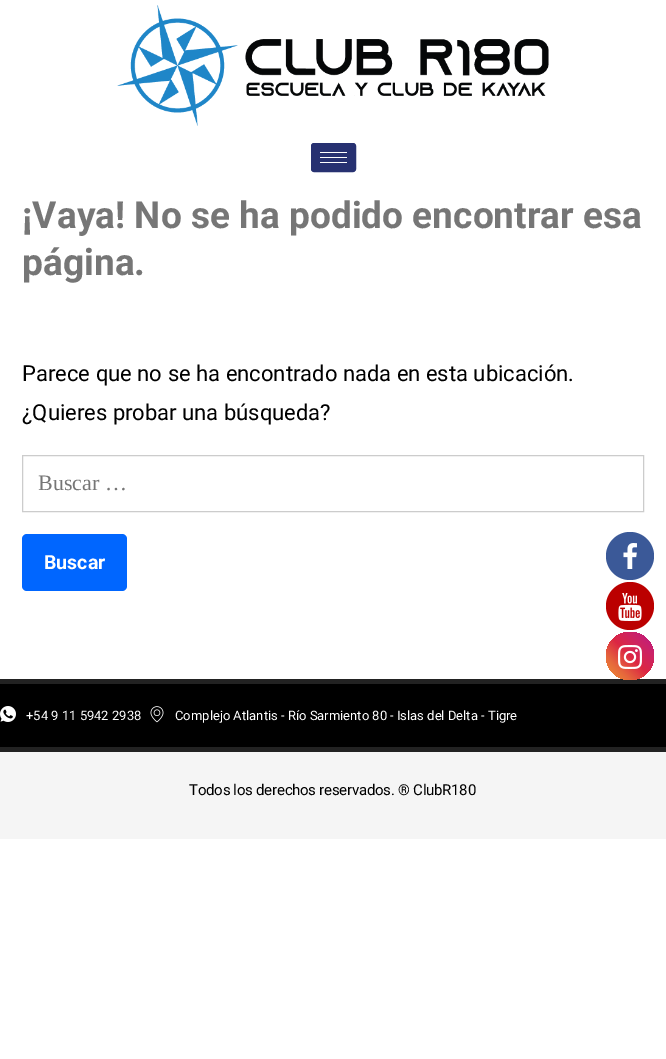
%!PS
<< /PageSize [666 1059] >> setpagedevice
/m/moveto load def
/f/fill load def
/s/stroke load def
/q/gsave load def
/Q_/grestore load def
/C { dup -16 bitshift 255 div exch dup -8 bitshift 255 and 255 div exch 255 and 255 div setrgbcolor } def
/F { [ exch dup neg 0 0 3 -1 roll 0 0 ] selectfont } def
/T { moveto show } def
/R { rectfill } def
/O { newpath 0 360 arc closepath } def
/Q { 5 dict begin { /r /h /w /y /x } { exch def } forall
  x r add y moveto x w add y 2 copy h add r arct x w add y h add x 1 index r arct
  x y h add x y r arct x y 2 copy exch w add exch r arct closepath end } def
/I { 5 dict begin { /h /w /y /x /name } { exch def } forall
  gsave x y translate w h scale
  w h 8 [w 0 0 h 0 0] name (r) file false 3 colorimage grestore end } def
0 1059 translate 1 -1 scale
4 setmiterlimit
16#FFFFFF C
0 0 666 1059 R
(1.rgb) 117 5 432 121 I
16#273171 C
311.5 143.5 44 28 2.5 Q q f Q_
s
16#FFFFFF C
320 152 27 1 R
320 157 27 1 R
320 162 27 1 R
/Roboto-Bold 37.1 F
16#767676 C
(¡Vaya! No se ha podido encontrar esa) 22 228 T
(página.) 22 275 T
/Roboto-Regular 22 F
16#000000 C
(Parece que no se ha encontrado nada en esta ubicación.) 22 381 T
(¿Quieres probar una búsqueda?) 22 420 T
16#CCCCCC C
22.5 455.5 621 56 rectstroke
/LiberationSerif-Regular 22 F
16#767676 C
(Buscar …) 38 490 T
16#0066FF C
22 534 105 57 5 Q f
/Roboto-Bold 19.5 F
16#FFFFFF C
(Buscar) 44 569 T
16#222222 C
0 679 666 73 R
16#000000 C
0 684 666 63 R
(2.rgb) 0 706 16 16 I
/Roboto-Regular 13 F
16#FFFFFF C
(+54 9 11 5942 2938) 26 720 T
(3.rgb) 150 706 14 17 I
(Complejo Atlantis - Río Sarmiento 80 - Islas del Delta - Tigre) 175 720 T
16#F5F5F5 C
0 752 666 87 R
/Roboto-Regular 15 F
16#000000 C
189 795 m -.25 0 (Todos los derechos reservados. ® ClubR180) ashow
16#3B5998 C
630 556 24 O f
(4.rgb) 623 543 14 26 I
16#BB0000 C
630 606 24 O f
(5.rgb) 618 593 24 28 I
q 630 656 24 O clip newpath
<< /ShadingType 2 /ColorSpace /DeviceRGB /Coords [606 680 654 632] /Extend [true true] /Function << /FunctionType 3 /Domain [0 1] /Functions [<< /FunctionType 2 /Domain [0 1] /C0 [.941 .58 .2] /C1 [.902 .408 .235] /N 1 >> << /FunctionType 2 /Domain [0 1] /C0 [.902 .408 .235] /C1 [.863 .153 .263] /N 1 >> << /FunctionType 2 /Domain [0 1] /C0 [.863 .153 .263] /C1 [.8 .137 .4] /N 1 >> << /FunctionType 2 /Domain [0 1] /C0 [.8 .137 .4] /C1 [.737 .094 .533] /N 1 >>] /Bounds [.25 .5 .75] /Encode [0 1 0 1 0 1 0 1] >> >> shfill Q_
(6.rgb) 618 645 24 24 I
showpage
